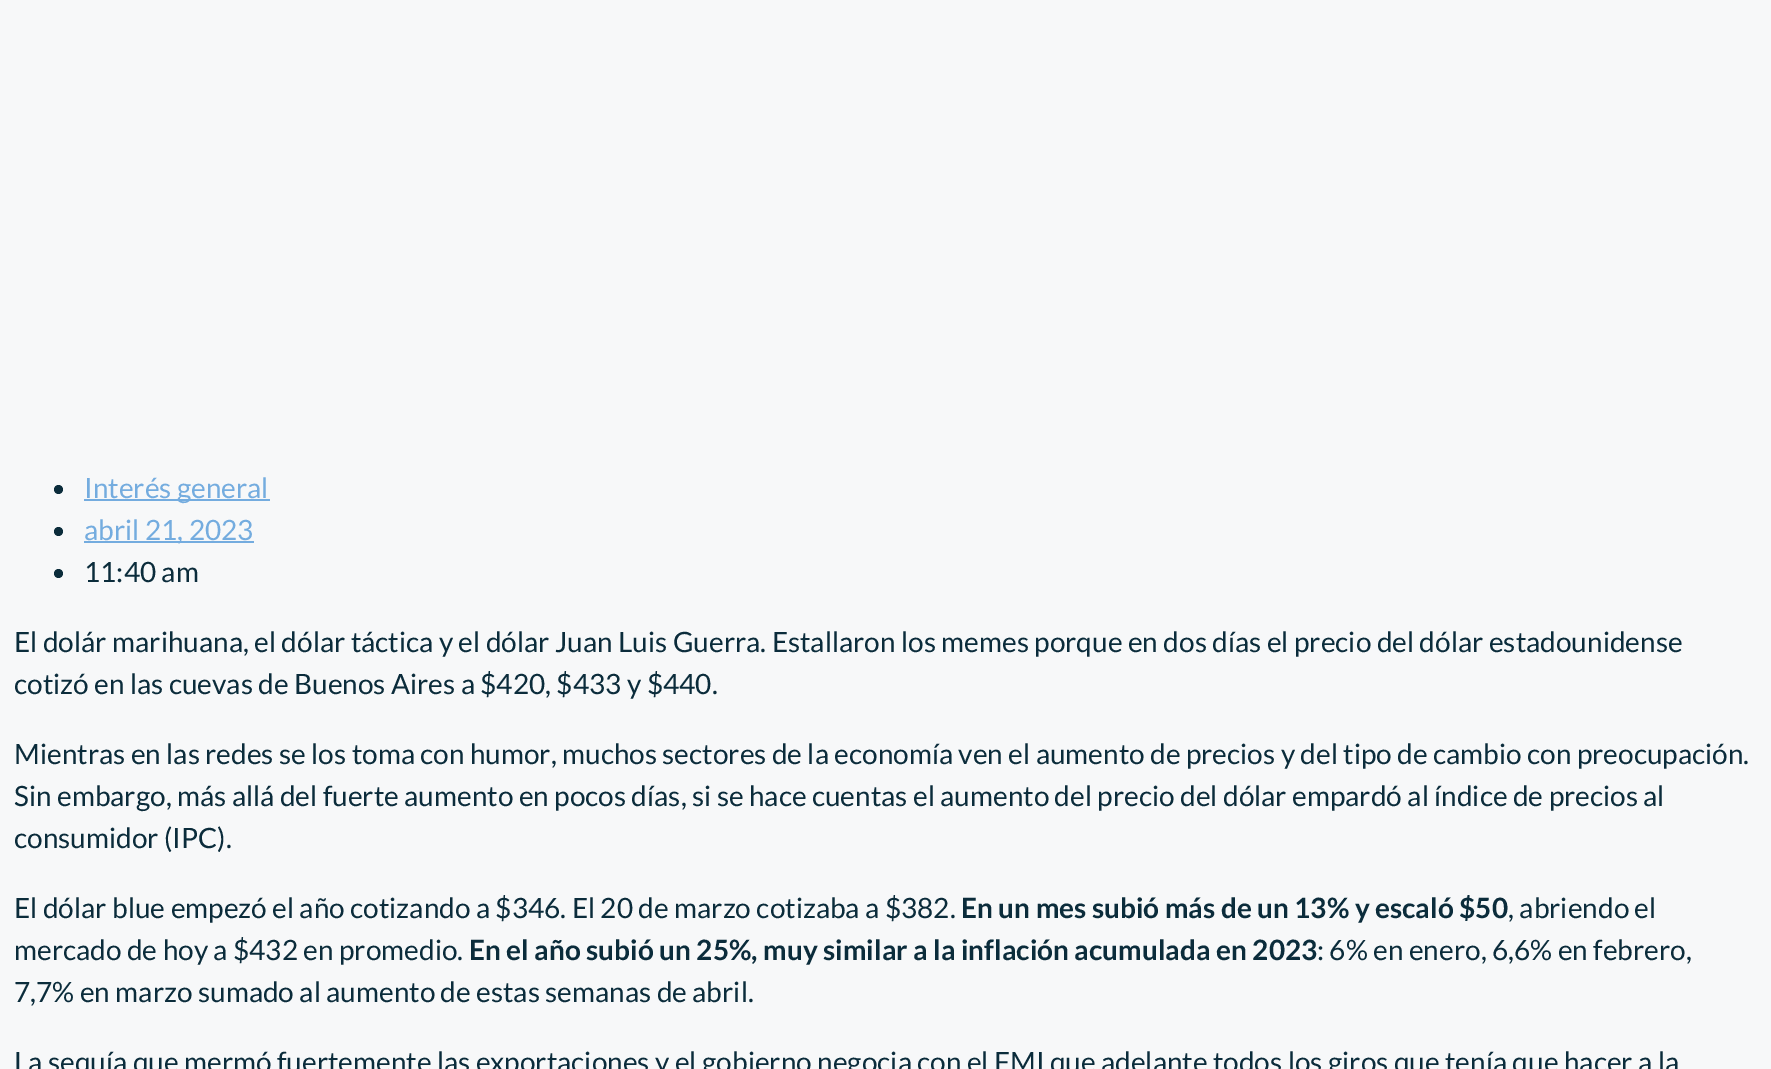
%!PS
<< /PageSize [1771 1069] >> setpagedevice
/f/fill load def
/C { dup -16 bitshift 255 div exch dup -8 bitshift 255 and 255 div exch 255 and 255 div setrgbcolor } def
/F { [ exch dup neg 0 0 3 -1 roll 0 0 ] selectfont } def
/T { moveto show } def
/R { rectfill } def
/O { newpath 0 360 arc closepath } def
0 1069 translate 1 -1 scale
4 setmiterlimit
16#F7F8F9 C
0 0 1771 1069 R
16#0B2C3B C
58.5 489.5 4.5 O f
16#74ACDF C
84 499 186 2 R
/Lato-Regular 28 F
(Interés general) 84 498 T
16#0B2C3B C
58.5 531.5 4.5 O f
16#74ACDF C
84 541 170 2 R
(abril 21, 2023) 84 540 T
16#0B2C3B C
58.5 573.5 4.5 O f
(11:40 am) 84 582 T
(El dolár marihuana, el dólar táctica y el dólar Juan Luis Guerra. Estallaron los memes porque en dos días el precio del dólar estadounidense) 14 652 T
(cotizó en las cuevas de Buenos Aires a $420, $433 y $440.) 14 694 T
(Mientras en las redes se los toma con humor, muchos sectores de la economía ven el aumento de precios y del tipo de cambio con preocupación.) 14 764 T
(Sin embargo, más allá del fuerte aumento en pocos días, si se hace cuentas el aumento del precio del dólar empardó al índice de precios al) 14 806 T
(consumidor \(IPC\).) 14 848 T
(El dólar blue empezó el año cotizando a $346. El 20 de marzo cotizaba a $382.) 14 918 T
/Lato-Bold 28 F
(En un mes subió más de un 13% y escaló $50) 961 918 T
/Lato-Regular 28 F
(, abriendo el) 1508 918 T
(mercado de hoy a $432 en promedio.) 14 960 T
/Lato-Bold 28 F
(En el año subió un 25%, muy similar a la inflación acumulada en 2023) 469 960 T
/Lato-Regular 28 F
(: 6% en enero, 6,6% en febrero,) 1317 960 T
(7,7% en marzo sumado al aumento de estas semanas de abril.) 14 1002 T
(La sequía que mermó fuertemente las exportaciones y el gobierno negocia con el FMI que adelante todos los giros que tenía que hacer a la) 14 1072 T
showpage
